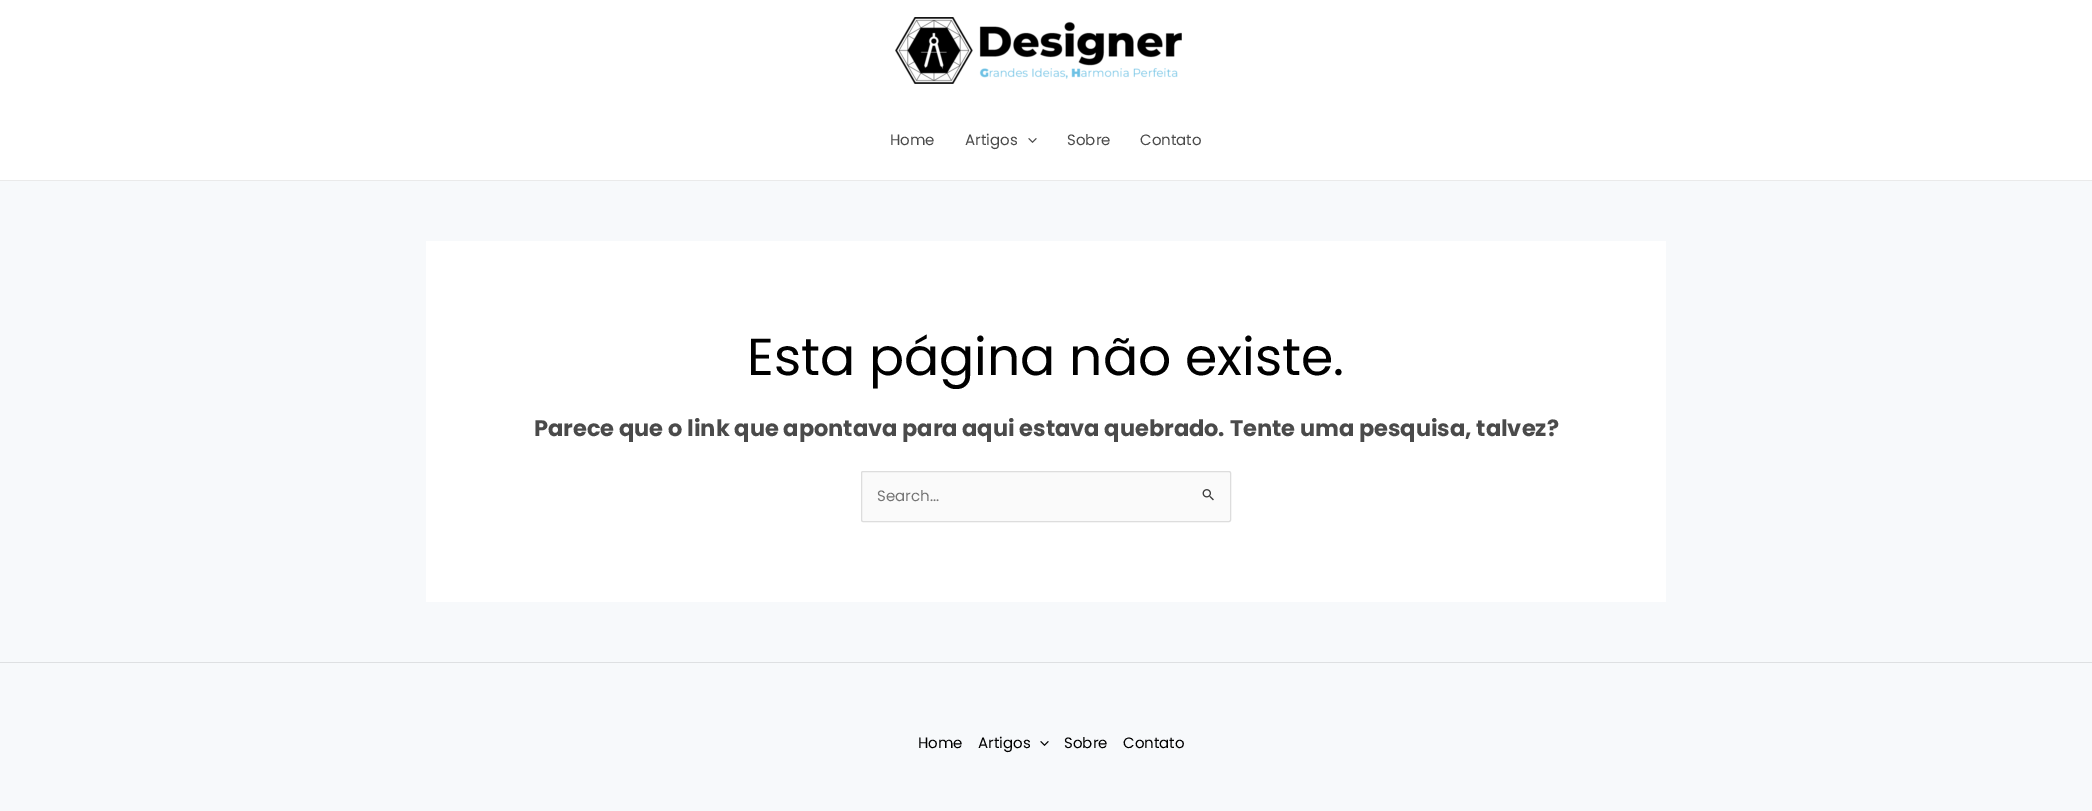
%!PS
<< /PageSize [2092 811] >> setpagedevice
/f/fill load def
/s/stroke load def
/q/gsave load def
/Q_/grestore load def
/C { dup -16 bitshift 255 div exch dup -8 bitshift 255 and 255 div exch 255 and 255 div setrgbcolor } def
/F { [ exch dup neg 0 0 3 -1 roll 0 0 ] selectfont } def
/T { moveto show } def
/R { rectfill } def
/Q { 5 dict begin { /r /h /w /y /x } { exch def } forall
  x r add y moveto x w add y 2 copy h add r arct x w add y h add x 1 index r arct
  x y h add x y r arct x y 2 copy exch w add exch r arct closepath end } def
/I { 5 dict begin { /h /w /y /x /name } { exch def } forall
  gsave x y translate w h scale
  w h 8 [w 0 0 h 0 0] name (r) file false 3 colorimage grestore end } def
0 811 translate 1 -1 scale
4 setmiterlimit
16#F7F9FB C
0 0 2092 811 R
16#FFFFFF C
0 0 2092 180 R
(1.rgb) 895 17 287 67 I
16#EAEAEA C
0 180 2092 1 R
/Poppins-Regular 15 F
16#4A4A4A C
(Home) 890 145 T
(Artigos) 965 145 T
(2.rgb) 1028 138 9 5 I
(Sobre) 1067 145 T
(Contato) 1140 145 T
16#FFFFFF C
426 241 1240 361 R
/Poppins-Regular 52 F
16#000000 C
(Esta página não existe.) 747 375 T
/Poppins-Bold 22.5 F
16#4A4A4A C
(Parece que o link que apontava para aqui estava quebrado. Tente uma pesquisa, talvez?) 534 436 T
16#FAFAFA C
861.5 471.5 369 50 1.5 Q q f Q_
16#DDDDDD C
s
/Poppins-Regular 15 F
16#757575 C
(Search...) 877 501 T
(3.rgb) 1202 489 12 12 I
16#DEE0E2 C
0 662 2092 1 R
16#000000 C
(Home) 918 748 T
(Artigos) 978 748 T
(4.rgb) 1040 741 9 5 I
(Sobre) 1064 748 T
(Contato) 1123 748 T
showpage
